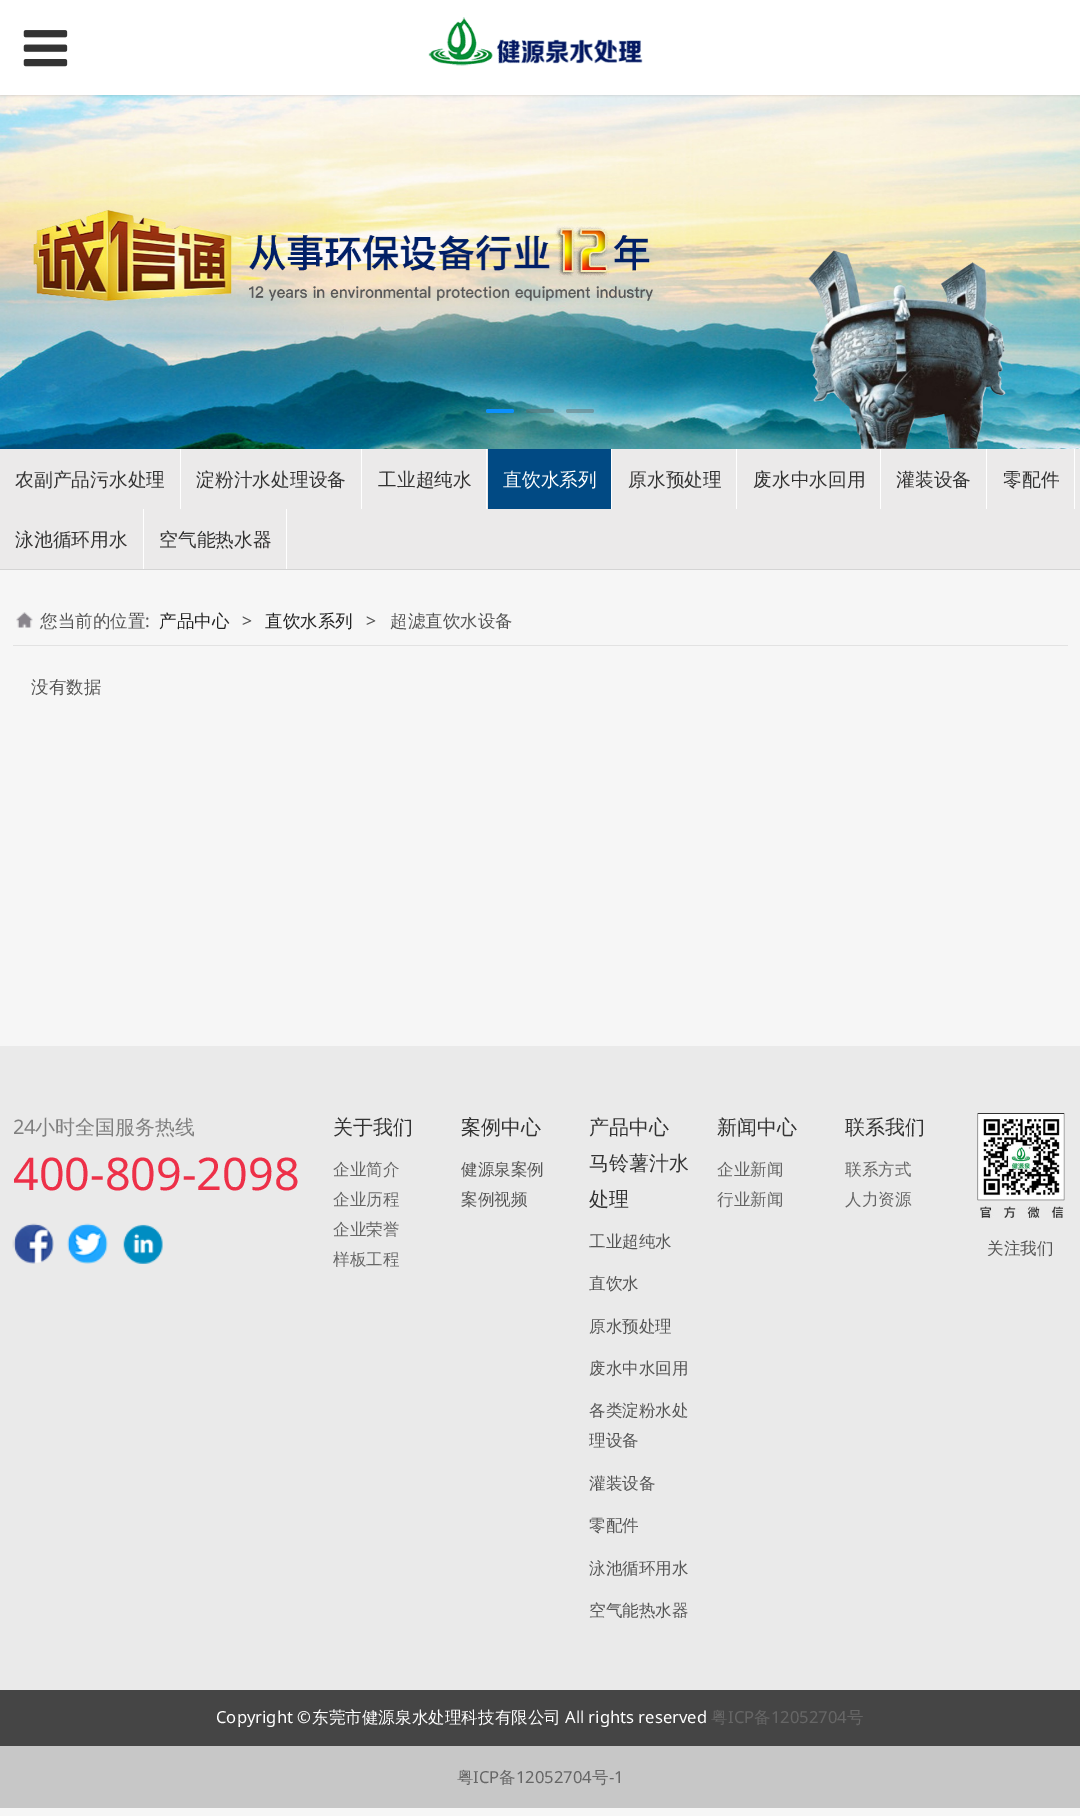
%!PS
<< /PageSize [1080 1816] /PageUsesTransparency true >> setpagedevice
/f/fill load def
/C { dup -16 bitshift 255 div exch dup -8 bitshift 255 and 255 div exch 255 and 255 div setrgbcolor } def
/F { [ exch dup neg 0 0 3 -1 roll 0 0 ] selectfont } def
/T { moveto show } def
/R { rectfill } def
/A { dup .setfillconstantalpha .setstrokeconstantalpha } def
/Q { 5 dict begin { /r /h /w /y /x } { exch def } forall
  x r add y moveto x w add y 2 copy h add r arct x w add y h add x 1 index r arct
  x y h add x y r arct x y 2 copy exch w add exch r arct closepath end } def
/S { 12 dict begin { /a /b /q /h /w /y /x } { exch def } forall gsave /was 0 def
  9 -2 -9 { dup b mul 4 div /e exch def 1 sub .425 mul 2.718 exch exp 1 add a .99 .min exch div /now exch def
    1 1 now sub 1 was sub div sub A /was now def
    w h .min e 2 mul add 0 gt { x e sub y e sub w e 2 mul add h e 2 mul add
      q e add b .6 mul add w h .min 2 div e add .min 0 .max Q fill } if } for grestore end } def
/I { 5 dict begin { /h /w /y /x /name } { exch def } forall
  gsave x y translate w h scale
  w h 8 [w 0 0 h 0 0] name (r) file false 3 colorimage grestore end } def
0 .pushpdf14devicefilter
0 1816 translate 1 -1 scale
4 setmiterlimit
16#F6F6F6 C
0 0 1080 1816 R
(3.rgb) 0 95 1080 354 I
16#000000 C
0 1 1080 95 0 1 .1 S
16#FFFFFF C
0 0 1080 95 R
(1.rgb) 23 30 45 37 I
(2.rgb) 428 17 215 49 I
16#0B8FFD C
486 409 28 4 2 Q f
0.42 A
16#646464 C
526 409 28 4 2 Q f
566 409 28 4 2 Q f
1 A
16#EBEAEA C
0 449 1080 120 R
16#D4D4D4 C
0 569 1080 1 R
16#FFFFFF C
180 449 1 60 R
/WenQuanYiZenHei-Medium 18.75 F
16#333333 C
(农副产品污水处理) 15 486 T
16#FFFFFF C
361 449 1 60 R
16#333333 C
(淀粉汁水处理设备) 196 486 T
16#FFFFFF C
486 449 1 60 R
16#333333 C
(工业超纯水) 378 486 T
16#FFFFFF C
611 449 1 60 R
16#014A84 C
488 449 123 60 R
16#FFFFFF C
(直饮水系列) 503 486 T
736 449 1 60 R
16#333333 C
(原水预处理) 628 486 T
16#FFFFFF C
880 449 1 60 R
16#333333 C
(废水中水回用) 753 486 T
16#FFFFFF C
986 449 1 60 R
16#333333 C
(灌装设备) 896 486 T
16#FFFFFF C
1074 449 1 60 R
16#333333 C
(零配件) 1003 486 T
16#FFFFFF C
143 509 1 60 R
16#333333 C
(泳池循环用水) 15 546 T
16#FFFFFF C
286 509 1 60 R
16#333333 C
(空气能热水器) 159 546 T
(4.rgb) 16 612 17 16 I
16#E2E2E2 C
13 645 1055 1 R
/WenQuanYiZenHei-Medium 17.5 F
16#555555 C
(您当前的位置) 40 627 T
/NotoSans-Regular 17.5 F
(:) 145 627 T
/WenQuanYiZenHei-Medium 17.5 F
16#222222 C
(产品中心) 159 627 T
/NotoSans-Regular 17.5 F
16#555555 C
(>) 242 627 T
/WenQuanYiZenHei-Medium 17.5 F
16#222222 C
(直饮水系列) 265 627 T
/NotoSans-Regular 17.5 F
16#555555 C
(>) 366 627 T
/WenQuanYiZenHei-Medium 17.5 F
(超滤直饮水设备) 390 627 T
(没有数据) 31 693 T
16#EAEAEA C
0 1046 1080 644 R
/NotoSans-Regular 20 F
16#808080 C
(24) 13 1134 T
/WenQuanYiZenHei-Medium 20 F
(小时全国服务热线) 35 1134 T
/NotoSans-Regular 45 F
16#ED3048 C
(400-809-2098) 13 1190 T
(5.rgb) 12 1223 42 41 I
(6.rgb) 67 1223 41 41 I
(7.rgb) 123 1224 40 40 I
/WenQuanYiZenHei-Medium 20 F
16#333333 C
(关于我们) 333 1134 T
/WenQuanYiZenHei-Medium 16.6 F
16#666666 C
(企业简介) 333 1175 T
(企业历程) 333 1205 T
(企业荣誉) 333 1235 T
(样板工程) 333 1265 T
/WenQuanYiZenHei-Medium 20 F
16#333333 C
(案例中心) 461 1134 T
/WenQuanYiZenHei-Medium 16.6 F
16#555555 C
(健源泉案例) 461 1175 T
(案例视频) 461 1205 T
/WenQuanYiZenHei-Medium 20 F
16#333333 C
(产品中心) 589 1134 T
(马铃薯汁水) 589 1170 T
(处理) 589 1206 T
/WenQuanYiZenHei-Medium 16.6 F
16#555555 C
(工业超纯水) 589 1247 T
(直饮水) 589 1289 T
(原水预处理) 589 1332 T
(废水中水回用) 589 1374 T
(各类淀粉水处) 589 1416 T
(理设备) 589 1446 T
(灌装设备) 589 1489 T
(零配件) 589 1531 T
(泳池循环用水) 589 1574 T
(空气能热水器) 589 1616 T
/WenQuanYiZenHei-Medium 20 F
16#333333 C
(新闻中心) 717 1134 T
/WenQuanYiZenHei-Medium 16.6 F
16#666666 C
(企业新闻) 717 1175 T
(行业新闻) 717 1205 T
/WenQuanYiZenHei-Medium 20 F
16#333333 C
(联系我们) 845 1134 T
/WenQuanYiZenHei-Medium 16.6 F
16#666666 C
(联系方式) 845 1175 T
(人力资源) 845 1205 T
(8.rgb) 977 1113 88 105 I
16#555555 C
(关注我们) 987 1254 T
16#454545 C
0 1690 1080 56 R
/NotoSans-Regular 16.6 F
16#FFFFFF C
(Copyright ©) 216 1723 T
/WenQuanYiZenHei-Medium 16.6 F
(东莞市健源泉水处理科技有限公司) 312 1723 T
/NotoSans-Regular 16.6 F
(All rights reserved) 565 1723 T
/WenQuanYiZenHei-Medium 16.6 F
16#666666 C
(粤) 711 1723 T
/NotoSans-Regular 16.6 F
(ICP) 728 1723 T
/WenQuanYiZenHei-Medium 16.6 F
(备) 754 1723 T
/NotoSans-Regular 16.6 F
(12052704) 771 1723 T
/WenQuanYiZenHei-Medium 16.6 F
(号) 847 1723 T
16#C7C7C7 C
0 1746 1080 62 R
16#666666 C
(粤) 457 1783 T
/NotoSans-Regular 16.6 F
(ICP) 473 1783 T
/WenQuanYiZenHei-Medium 16.6 F
(备) 499 1783 T
/NotoSans-Regular 16.6 F
(12052704) 516 1783 T
/WenQuanYiZenHei-Medium 16.6 F
(号) 592 1783 T
/NotoSans-Regular 16.6 F
(-1) 609 1783 T
.poppdf14devicefilter showpage
